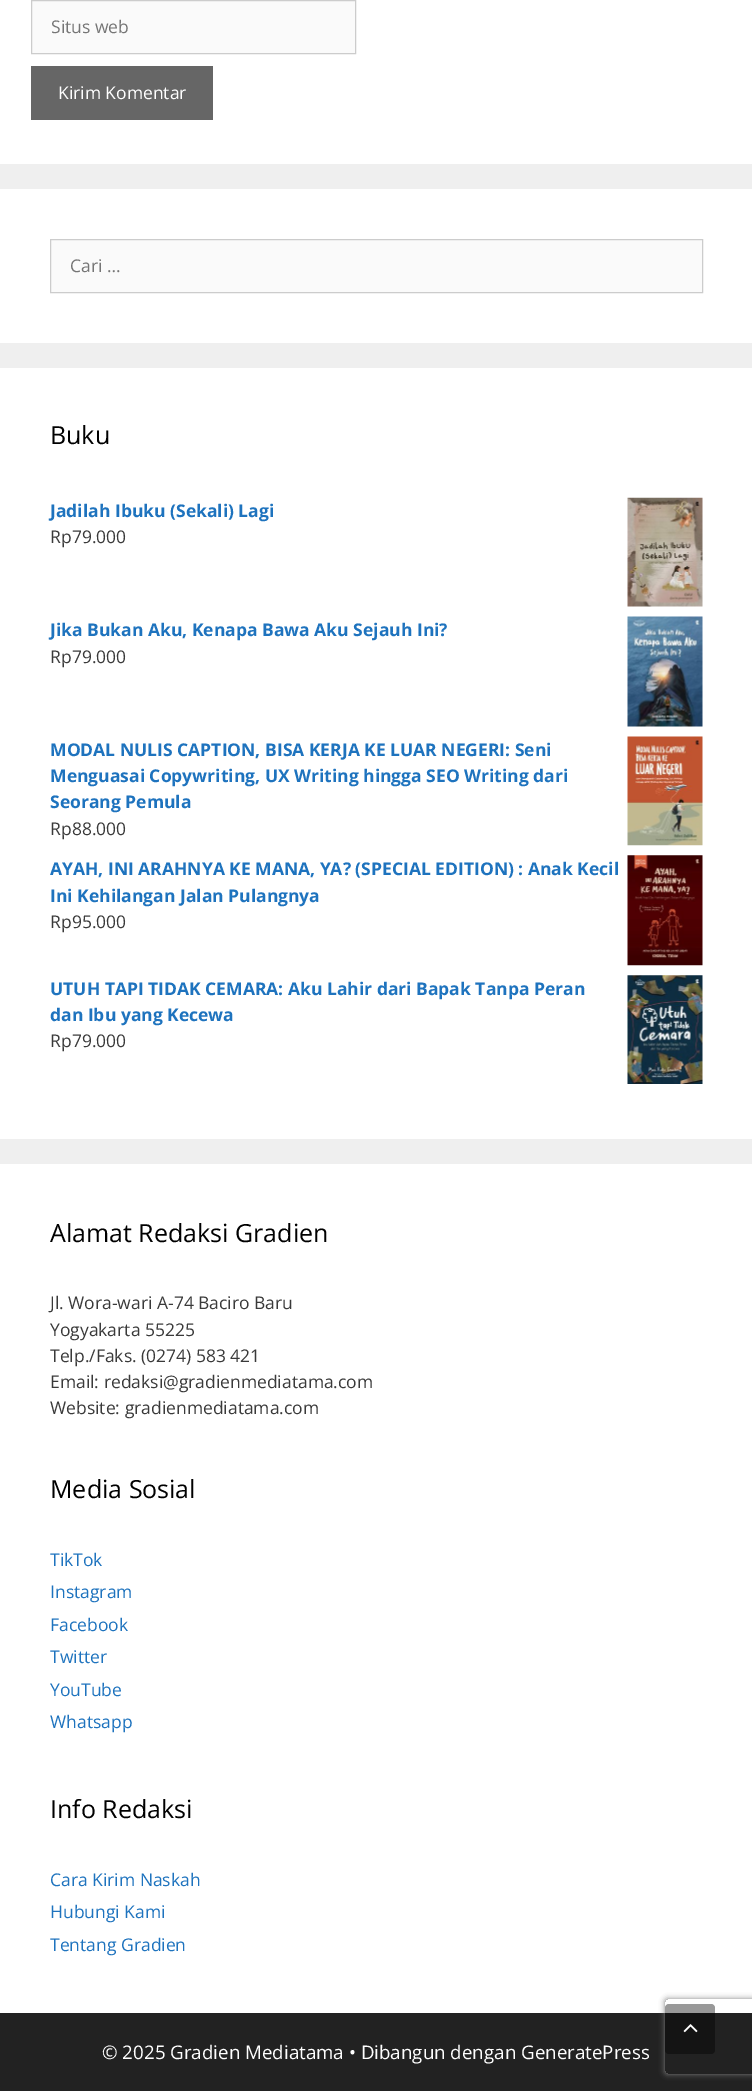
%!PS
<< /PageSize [752 2091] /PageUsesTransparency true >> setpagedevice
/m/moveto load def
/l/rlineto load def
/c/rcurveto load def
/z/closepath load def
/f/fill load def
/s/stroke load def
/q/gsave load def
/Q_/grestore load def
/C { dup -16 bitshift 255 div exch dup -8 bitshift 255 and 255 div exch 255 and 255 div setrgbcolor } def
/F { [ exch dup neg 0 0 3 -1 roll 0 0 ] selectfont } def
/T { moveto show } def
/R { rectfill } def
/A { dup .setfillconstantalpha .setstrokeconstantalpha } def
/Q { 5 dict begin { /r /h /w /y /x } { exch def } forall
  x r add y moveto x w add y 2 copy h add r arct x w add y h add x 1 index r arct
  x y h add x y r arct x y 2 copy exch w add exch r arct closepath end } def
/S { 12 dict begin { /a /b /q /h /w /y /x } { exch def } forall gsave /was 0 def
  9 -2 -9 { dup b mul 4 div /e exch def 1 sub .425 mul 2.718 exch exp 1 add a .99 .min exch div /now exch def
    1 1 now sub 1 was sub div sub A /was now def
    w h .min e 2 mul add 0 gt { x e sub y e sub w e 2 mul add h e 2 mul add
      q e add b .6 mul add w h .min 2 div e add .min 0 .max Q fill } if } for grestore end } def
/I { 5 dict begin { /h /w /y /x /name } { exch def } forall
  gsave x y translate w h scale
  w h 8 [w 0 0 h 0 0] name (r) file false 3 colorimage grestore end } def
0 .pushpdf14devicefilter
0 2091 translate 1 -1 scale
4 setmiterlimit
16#EFEFEF C
0 0 752 2091 R
16#FFFFFF C
0 0 752 164 R
16#FAFAFA C
31.5 .5 m 324 0 l 0 53 l -324 0 l z q f Q_
16#CCCCCC C
s
/OpenSans-Regular 17.5 F
16#757575 C
(Situs web) 51 33 T
16#666666 C
31 66 182 54 R
16#FFFFFF C
(Kirim Komentar) 58 99 T
0 189 752 154 R
16#FAFAFA C
50.5 239.5 m 652 0 l 0 53 l -652 0 l z q f Q_
16#CCCCCC C
s
16#757575 C
(Cari …) 70 272 T
16#FFFFFF C
0 368 752 771 R
/OpenSans-Regular 25 F
16#000000 C
(Buku) 50 444 T
/OpenSans-Bold 17.5 F
16#1E73BE C
(Jadilah Ibuku \(Sekali\) Lagi) 50 517 T
(1.rgb) 627 497 76 110 I
/OpenSans-Regular 17.5 F
16#3A3A3A C
(Rp79.000) 50 543 T
/OpenSans-Bold 17.5 F
16#1E73BE C
(Jika Bukan Aku, Kenapa Bawa Aku Sejauh Ini?) 50 636 T
(2.rgb) 627 616 76 111 I
/OpenSans-Regular 17.5 F
16#3A3A3A C
(Rp79.000) 50 663 T
/OpenSans-Bold 17.5 F
16#1E73BE C
(MODAL NULIS CAPTION, BISA KERJA KE LUAR NEGERI: Seni) 50 756 T
(3.rgb) 627 736 76 110 I
(Menguasai Copywriting, UX Writing hingga SEO Writing dari) 50 782 T
(Seorang Pemula) 50 808 T
/OpenSans-Regular 17.5 F
16#3A3A3A C
(Rp88.000) 50 835 T
/OpenSans-Bold 17.5 F
16#1E73BE C
(AYAH, INI ARAHNYA KE MANA, YA? \(SPECIAL EDITION\) : Anak Kecil) 50 875 T
(4.rgb) 627 855 76 111 I
(Ini Kehilangan Jalan Pulangnya) 50 902 T
/OpenSans-Regular 17.5 F
16#3A3A3A C
(Rp95.000) 50 928 T
/OpenSans-Bold 17.5 F
16#1E73BE C
(UTUH TAPI TIDAK CEMARA: Aku Lahir dari Bapak Tanpa Peran) 50 995 T
(5.rgb) 627 975 76 109 I
(dan Ibu yang Kecewa) 50 1021 T
/OpenSans-Regular 17.5 F
16#3A3A3A C
(Rp79.000) 50 1047 T
16#FFFFFF C
0 1164 752 849 R
/OpenSans-Regular 25 F
16#000000 C
(Alamat Redaksi Gradien) 50 1242 T
/OpenSans-Regular 17.5 F
16#3A3A3A C
(Jl. Wora-wari A-74 Baciro Baru) 50 1309 T
(Yogyakarta 55225) 50 1336 T
(Telp./Faks. \(0274\) 583 421) 50 1362 T
(Email: redaksi@gradienmediatama.com) 50 1388 T
(Website: gradienmediatama.com) 50 1414 T
/OpenSans-Regular 25 F
16#000000 C
(Media Sosial) 50 1498 T
/OpenSans-Regular 17.5 F
16#1E73BE C
(TikTok) 50 1566 T
(Instagram) 50 1598 T
(Facebook) 50 1631 T
(Twitter) 50 1663 T
(YouTube) 50 1696 T
(Whatsapp) 50 1728 T
/OpenSans-Regular 25 F
16#000000 C
(Info Redaksi) 50 1818 T
/OpenSans-Regular 17.5 F
16#1E73BE C
(Cara Kirim Naskah) 50 1886 T
(Hubungi Kami) 50 1918 T
(Tentang Gradien) 50 1951 T
16#222222 C
0 2013 752 78 R
/OpenSans-Regular 18.75 F
16#FFFFFF C
(© 2025 Gradien Mediatama • Dibangun dengan GeneratePress) 102 2059 T
q
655 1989 m 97 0 l 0 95 l -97 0 l z 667.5 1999 m 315 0 l 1.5 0 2.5 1 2.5 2.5 c 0 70 l 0 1.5 -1 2.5 -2.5 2.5 c -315 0 l -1.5 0 -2.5 -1 -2.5 -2.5 c 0 -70 l 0 -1.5 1 -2.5 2.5 -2.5 c z eoclip newpath
16#808080 C
665 1999 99 75 2.5 3 1 S
Q_
0.4 A
16#000000 C
665 2004 50 50 4 Q f
1 A
(6.rgb) 683 2024 15 9 I
.poppdf14devicefilter showpage
